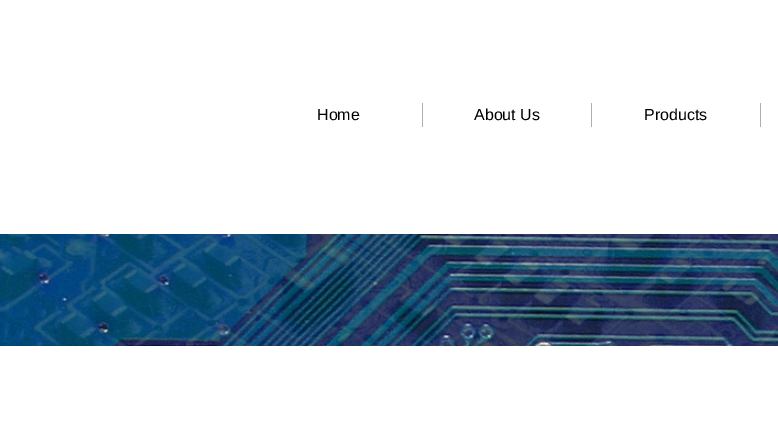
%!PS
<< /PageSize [778 435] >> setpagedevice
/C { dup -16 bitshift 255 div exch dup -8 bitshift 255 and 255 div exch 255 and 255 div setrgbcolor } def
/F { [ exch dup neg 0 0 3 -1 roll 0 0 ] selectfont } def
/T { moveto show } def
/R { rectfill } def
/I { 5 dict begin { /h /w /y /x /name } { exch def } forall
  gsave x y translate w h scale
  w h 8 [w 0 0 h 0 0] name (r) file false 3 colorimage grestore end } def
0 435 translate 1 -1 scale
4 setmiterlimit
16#FFFFFF C
0 0 778 435 R
16#AEAEAE C
422 103 1 24 R
/LiberationSans-Regular 16 F
16#000000 C
(Home) 317 120 T
16#AEAEAE C
591 103 1 24 R
16#000000 C
(About Us) 474 120 T
16#AEAEAE C
760 103 1 24 R
16#000000 C
(Products) 644 120 T
(1.rgb) 0 234 778 112 I
showpage
